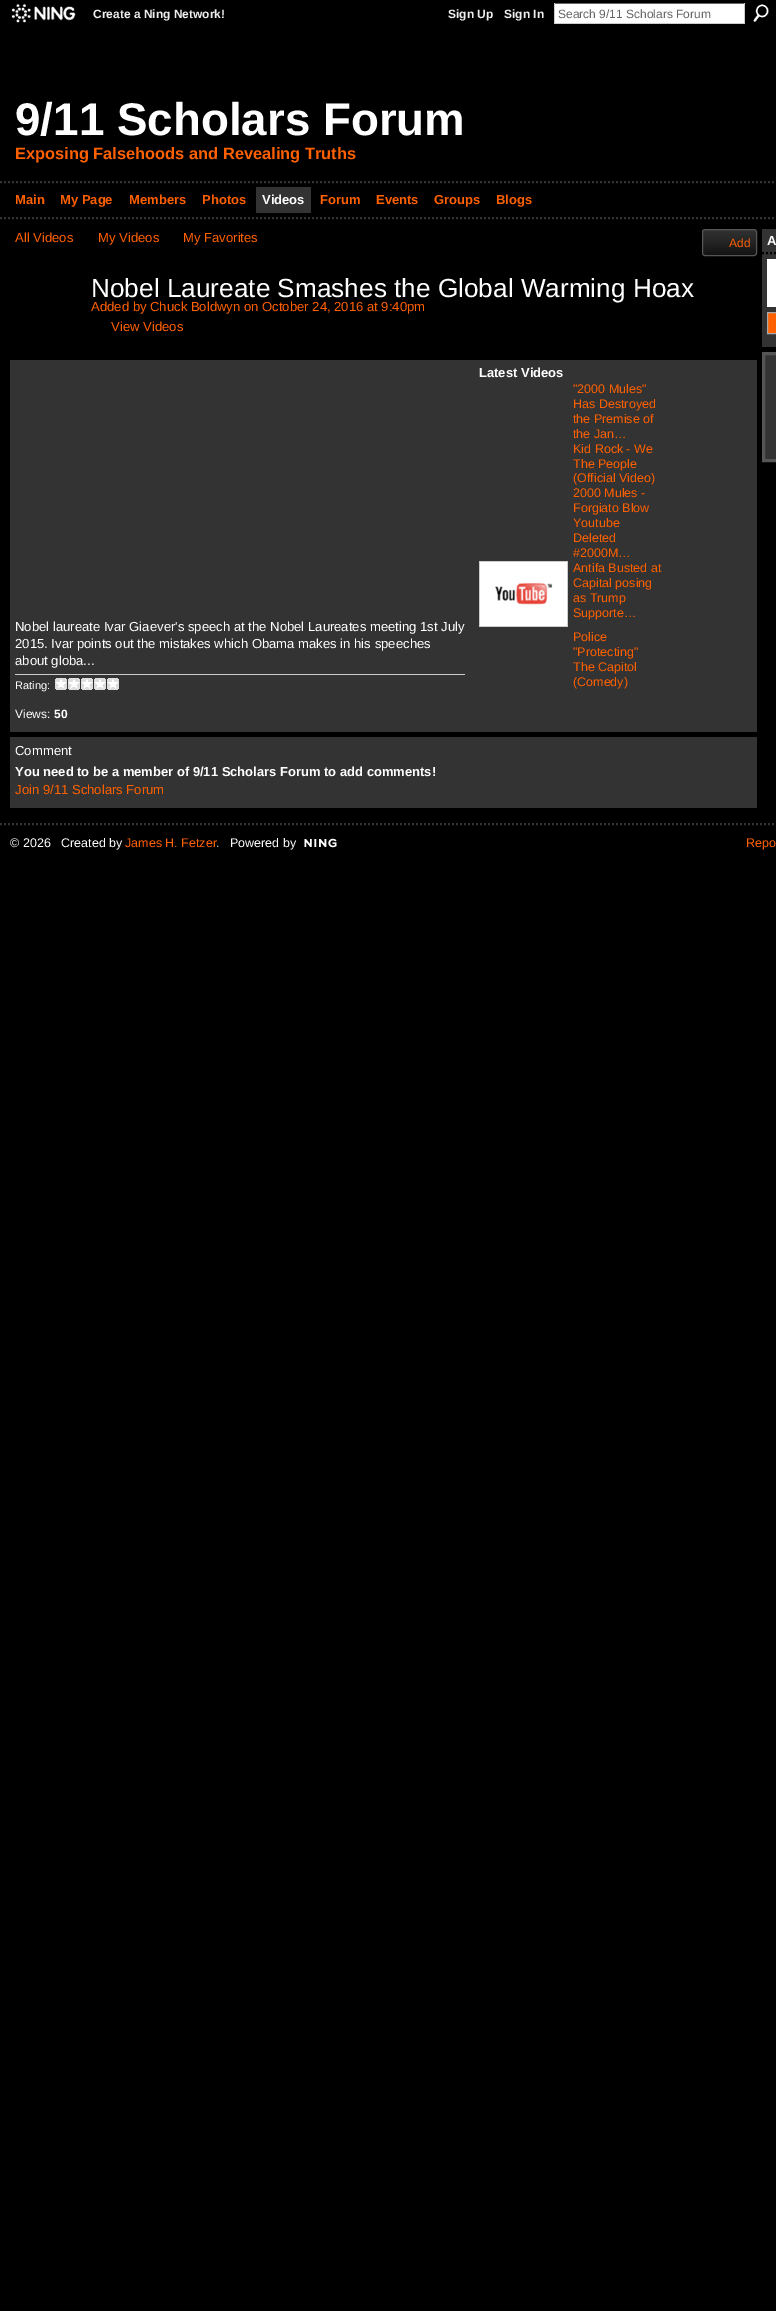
%!PS
<< /PageSize [776 2311] >> setpagedevice
/m/moveto load def
/l/rlineto load def
/z/closepath load def
/f/fill load def
/s/stroke load def
/q/gsave load def
/Q_/grestore load def
/w/setlinewidth load def
/C { dup -16 bitshift 255 div exch dup -8 bitshift 255 and 255 div exch 255 and 255 div setrgbcolor } def
/F { [ exch dup neg 0 0 3 -1 roll 0 0 ] selectfont } def
/T { moveto show } def
/R { rectfill } def
/Q { 5 dict begin { /r /h /w /y /x } { exch def } forall
  x r add y moveto x w add y 2 copy h add r arct x w add y h add x 1 index r arct
  x y h add x y r arct x y 2 copy exch w add exch r arct closepath end } def
/I { 5 dict begin { /h /w /y /x /name } { exch def } forall
  gsave x y translate w h scale
  w h 8 [w 0 0 h 0 0] name (r) file false 3 colorimage grestore end } def
0 2311 translate 1 -1 scale
4 setmiterlimit
16#000000 C
0 0 776 2311 R
(1.rgb) 11 3 65 20 I
/LiberationSans-Bold 12 F
16#EEEEEE C
(Create a Ning Network!) 93 18 T
(Sign Up) 448 18 T
(Sign In) 504 18 T
16#FFFFFF C
555 4 189 19 R
16#666666 C
554 3 191 1 R
16#CCCCCC C
744 3 1 21 R
554 23 191 1 R
554 3 1 21 R
/LiberationSans-Regular 12 F
16#666666 C
(Search 9/11 Scholars Forum) 558 18 T
(2.rgb) 753 4 16 18 I
/LiberationSans-Bold 45.75 F
16#FFFFFF C
(9/11 Scholars Forum) 15 135 T
/LiberationSans-Bold 16.4 F
16#FF6000 C
(Exposing Falsehoods and Revealing Truths) 15 159 T
16#333333 C
2 w
[2 2] 0 setdash
0 182 m 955 0 l s
0 218 m 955 0 l s
/LiberationSans-Bold 13 F
16#FF6000 C
(Main) 15 204 T
(My Page) 60 204 T
(Members) 129 204 T
(Photos) 202 204 T
16#333333 C
256 187 55 26 R
16#FFFFFF C
(Videos) 262 204 T
16#FF6000 C
(Forum) 320 204 T
(Events) 376 204 T
(Groups) 434 204 T
(Blogs) 496 204 T
/LiberationSans-Regular 13.1 F
(All Videos) 15 242 T
(My Videos) 98 242 T
(My Favorites) 183 242 T
(3.rgb) 702 230 55 26 I
16#555555 C
1 w
[] 0 setdash
702.5 229.5 54 26 2.5 Q s
/LiberationSans-Regular 12 F
16#FF6000 C
(Add) 729 247 T
/LiberationSans-Regular 26.2 F
16#FFFFFF C
(Nobel Laureate Smashes the Global Warming Hoax) 91 297 T
/LiberationSans-Regular 13.1 F
16#FF6000 C
(Added by Chuck Boldwyn on October 24, 2016 at 9:40pm) 91 311 T
(View Videos) 111 331 T
16#333333 C
10 360 747 372 R
16#CCCCCC C
15 674 450 1 R
16#FFFFFF C
(Nobel laureate Ivar Giaever's speech at the Nobel Laureates meeting 1st July) 15 631 T
(2015. Ivar points out the mistakes which Obama makes in his speeches) 15 648 T
(about globa...) 15 665 T
/LiberationSans-Regular 11 F
(Rating:) 15 689 T
(4.rgb) 55 678 64 12 I
/LiberationSans-Regular 12 F
(Views:) 15 718 T
/LiberationSans-Bold 12 F
(50) 54 718 T
/LiberationSans-Bold 13 F
(Latest Videos) 479 377 T
/LiberationSans-Regular 12.5 F
16#FF6000 C
("2000 Mules") 573 393 T
(Has Destroyed) 573 408 T
(the Premise of) 573 423 T
(the Jan…) 573 438 T
(Kid Rock - We) 573 453 T
(The People) 573 468 T
(\(Official Video\)) 573 482 T
(2000 Mules -) 573 497 T
(Forgiato Blow) 573 512 T
(Youtube) 573 527 T
(Deleted) 573 542 T
(#2000M…) 573 557 T
(5.rgb) 479 561 89 66 I
(Antifa Busted at) 573 572 T
(Capital posing) 573 587 T
(as Trump) 573 602 T
(Supporte…) 573 617 T
(Police) 573 641 T
("Protecting") 573 656 T
(The Capitol) 573 671 T
(\(Comedy\)) 573 686 T
16#333333 C
10 737 747 71 R
/LiberationSans-Regular 13.1 F
16#FFFFFF C
(Comment) 15 755 T
/LiberationSans-Bold 13 F
(You need to be a member of 9/11 Scholars Forum to add comments!) 15 776 T
/LiberationSans-Regular 13.1 F
16#FF6000 C
(Join 9/11 Scholars Forum) 15 794 T
16#333333 C
762 229 14 118 R
16#000000 C
2 w
[2 2] 0 setdash
762 253 m 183 0 l s
/LiberationSans-Bold 13.1 F
16#FFFFFF C
(A) 767 245 T
767 259 9 48 R
16#FF6000 C
767.5 312.5 m 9 0 l 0 21 l -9 0 l z q f Q_
16#AAAAAA C
1 w
[] 0 setdash
s
16#333333 C
763.5 353.5 m 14 0 l 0 107 l -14 0 l z q f Q_
16#555555 C
3 w
s
16#333333 C
2 w
[2 2] 0 setdash
0 824 m 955 0 l s
/LiberationSans-Regular 12.5 F
16#FFFFFF C
(© 2026) 10 847 T
(Created by) 61 847 T
16#FF6000 C
(James H. Fetzer) 125 847 T
16#FFFFFF C
(.) 216 847 T
(Powered by) 230 847 T
(6.rgb) 304 838 33 10 I
16#FF6000 C
(Repo) 746 847 T
showpage
